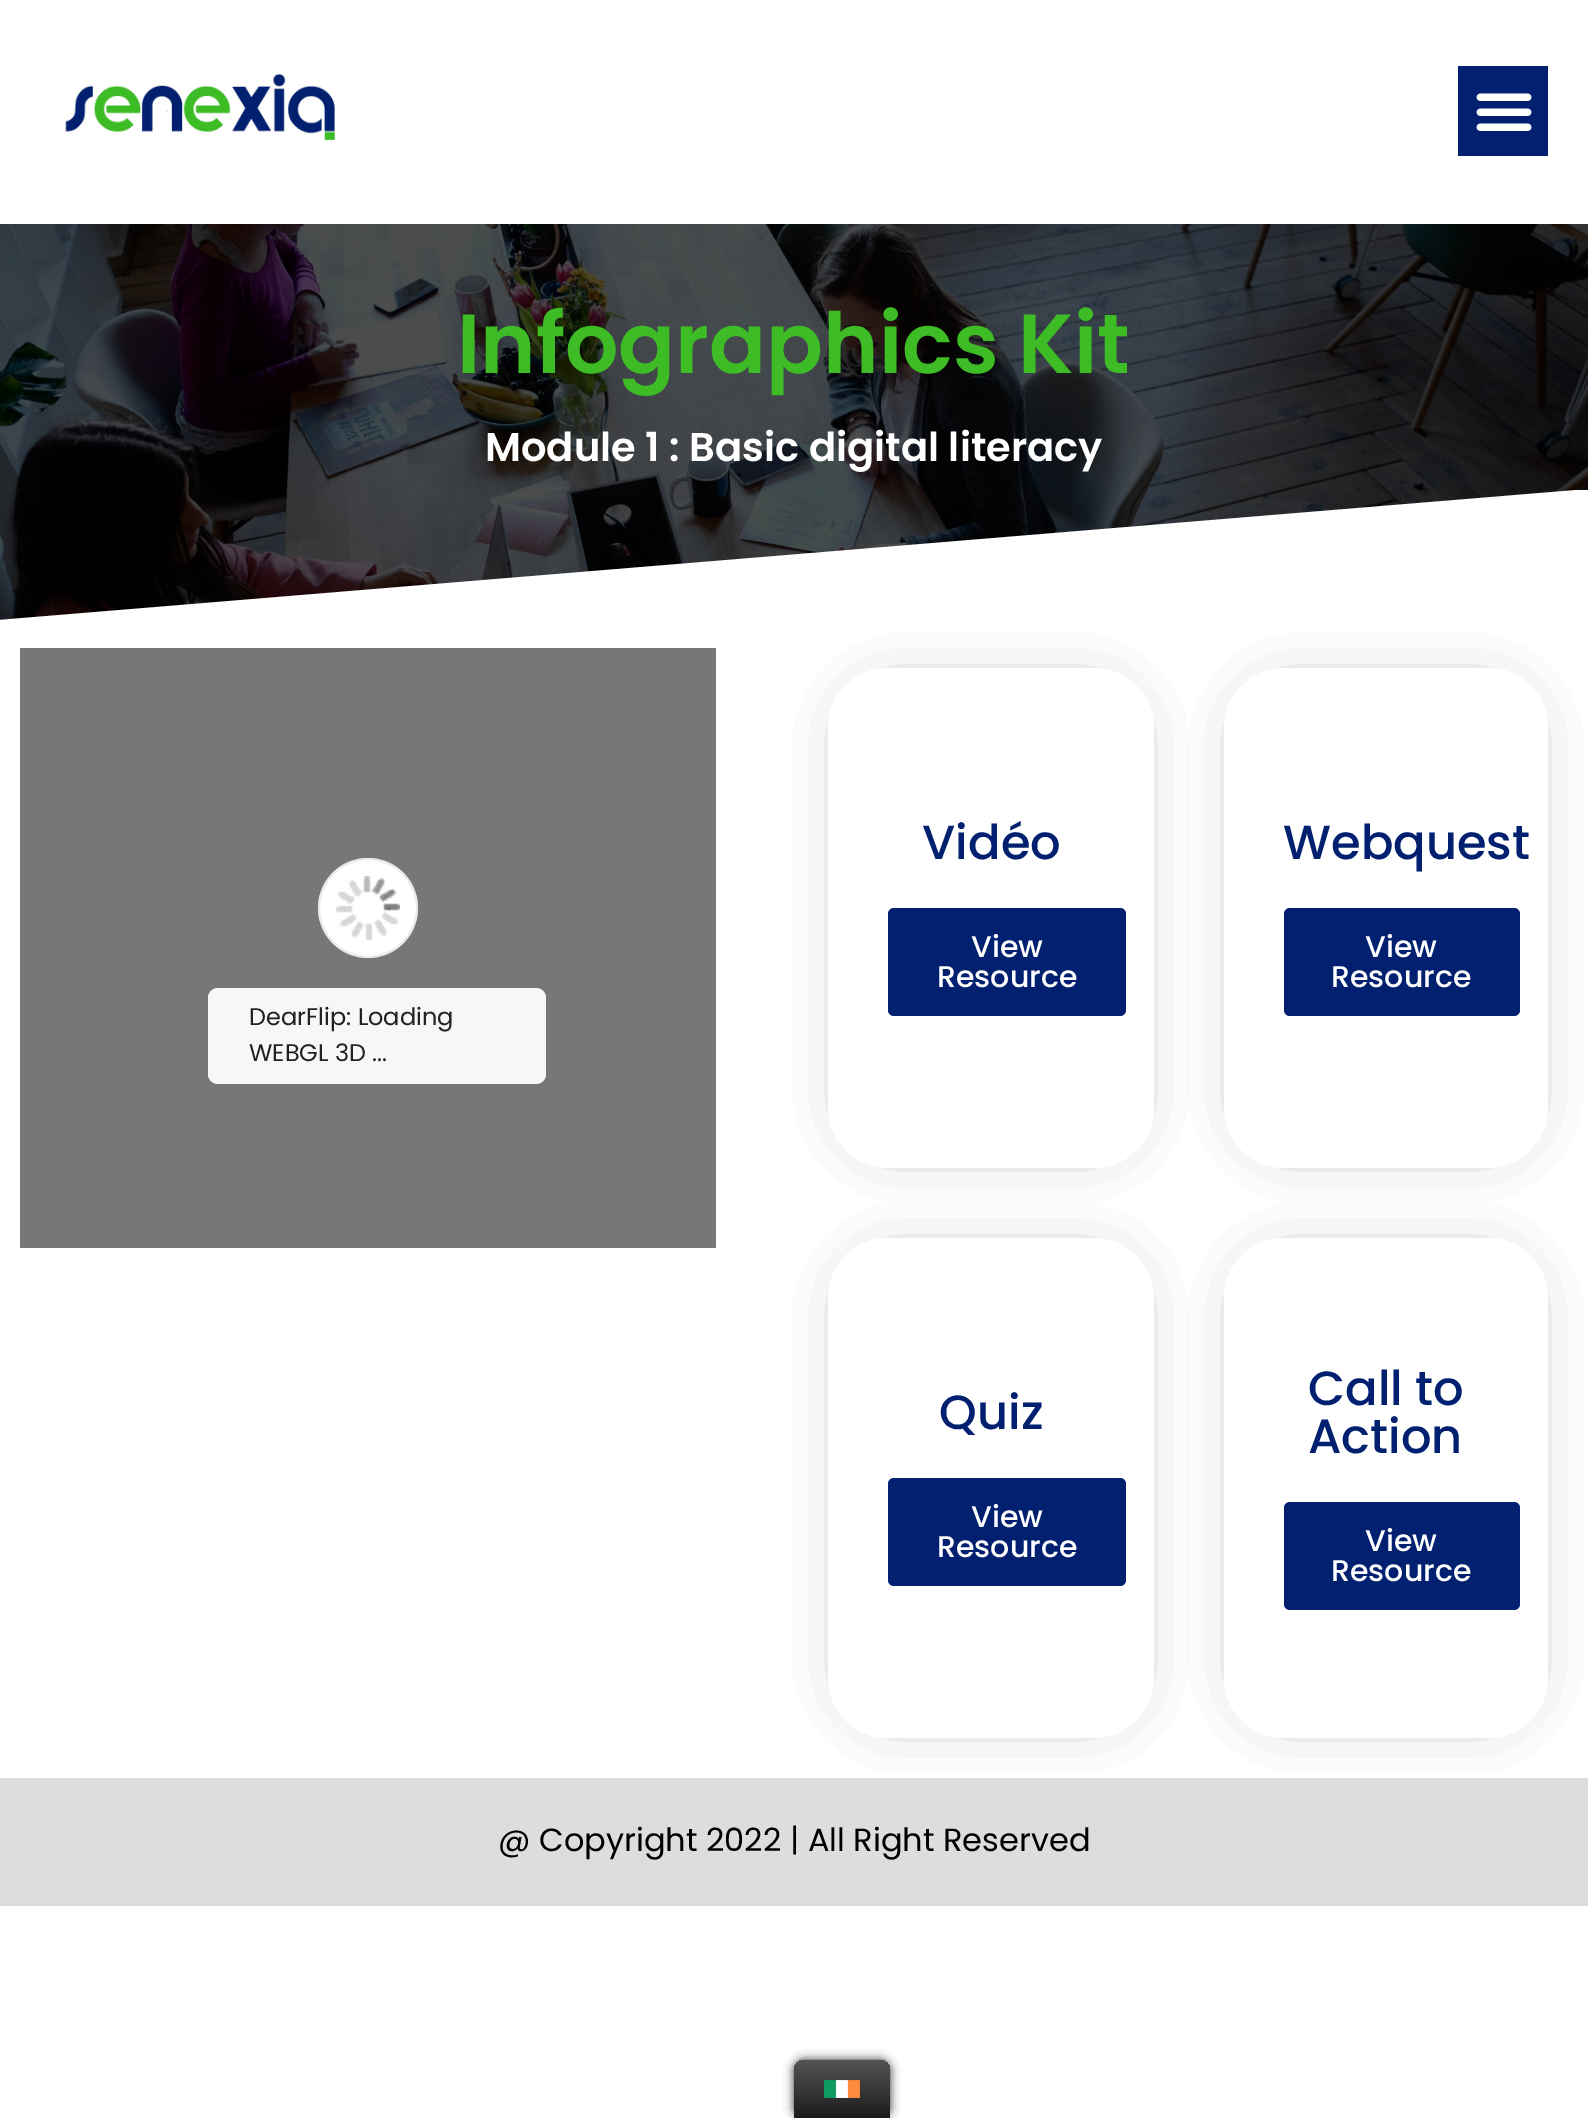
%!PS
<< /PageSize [1588 2118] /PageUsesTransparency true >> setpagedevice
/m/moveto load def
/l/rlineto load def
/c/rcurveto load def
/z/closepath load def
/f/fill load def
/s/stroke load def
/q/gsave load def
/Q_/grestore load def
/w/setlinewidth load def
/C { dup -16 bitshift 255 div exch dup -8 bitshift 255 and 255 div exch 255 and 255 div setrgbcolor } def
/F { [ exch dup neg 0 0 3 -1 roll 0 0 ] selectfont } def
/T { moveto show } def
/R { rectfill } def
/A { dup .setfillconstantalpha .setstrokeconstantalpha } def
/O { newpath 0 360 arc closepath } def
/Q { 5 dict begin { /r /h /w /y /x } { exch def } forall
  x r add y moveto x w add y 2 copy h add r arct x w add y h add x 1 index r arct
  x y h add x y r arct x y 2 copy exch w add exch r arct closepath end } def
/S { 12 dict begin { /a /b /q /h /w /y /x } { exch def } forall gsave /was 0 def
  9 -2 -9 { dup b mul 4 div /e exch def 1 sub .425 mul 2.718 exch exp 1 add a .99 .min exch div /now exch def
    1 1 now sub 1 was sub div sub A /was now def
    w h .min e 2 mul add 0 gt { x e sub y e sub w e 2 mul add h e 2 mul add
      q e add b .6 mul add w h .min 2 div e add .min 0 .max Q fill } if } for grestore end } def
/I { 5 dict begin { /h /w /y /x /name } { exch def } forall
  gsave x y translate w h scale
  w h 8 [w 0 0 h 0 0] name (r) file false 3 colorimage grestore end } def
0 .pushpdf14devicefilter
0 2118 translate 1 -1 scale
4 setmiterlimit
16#FFFFFF C
0 0 1588 2118 R
(1.rgb) 65 73 270 67 I
16#012070 C
1458 66 90 90 R
(2.rgb) 1476 93 56 38 I
(3.rgb) 0 224 1588 396 I
/Poppins-SemiBold 84 F
16#3DBC25 C
(Infographics Kit) 457 373 T
/Poppins-SemiBold 40 F
16#FFFFFF C
(Module 1 : Basic digital literacy) 485 461 T
q
0 490 1588 140 rectclip
-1 620 m 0 9 l 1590 0 l 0 -140 l z f
Q_
16#777777 C
20 648 696 600 R
16#FFFFFF C
368 908 50 O f
0.2 A
16#969696 C
2 w
368 908 49 O s
1 A
(4.rgb) 336 876 64 64 I
16#F7F7F7 C
208 988 338 96 10 Q f
/Poppins-Regular 24 F
16#222222 C
(DearFlip: Loading) 249 1025 T
(WEBGL 3D ...) 249 1061 T
16#000000 C
864 704 254 428 24 32 .5 S
16#FFFFFF C
828 668 326 500 60 Q f
/Poppins-Medium 48 F
16#012070 C
(Vidéo) 922 859 T
888 908 238 108 6 Q f
/Poppins-Medium 30 F
16#FFFFFF C
(View) 971 957 T
(Resource) 937 987 T
16#000000 C
1260 704 252 428 24 32 .5 S
16#FFFFFF C
1224 668 324 500 60 Q f
/Poppins-Medium 48 F
16#012070 C
(Webquest) 1283 859 T
1284 908 236 108 6 Q f
/Poppins-Medium 30 F
16#FFFFFF C
(View) 1365 957 T
(Resource) 1331 987 T
16#000000 C
864 1274 254 428 24 32 .5 S
16#FFFFFF C
828 1238 326 500 60 Q f
/Poppins-Medium 48 F
16#012070 C
(Quiz) 939 1429 T
888 1478 238 108 6 Q f
/Poppins-Medium 30 F
16#FFFFFF C
(View) 971 1527 T
(Resource) 937 1557 T
16#000000 C
1260 1274 252 428 24 32 .5 S
16#FFFFFF C
1224 1238 324 500 60 Q f
/Poppins-Medium 48 F
16#012070 C
(Call to) 1308 1405 T
(Action) 1308 1453 T
1284 1502 236 108 6 Q f
/Poppins-Medium 30 F
16#FFFFFF C
(View) 1365 1551 T
(Resource) 1331 1581 T
16#DDDDDD C
0 1778 1588 128 R
/Poppins-Regular 32 F
16#000000 C
(@ Copyright 2022 | All Right Reserved) 498 1851 T
16#212121 C
794 2060 96 58 10 5 1 S
q 804 2060 m 76 0 l 5.5 0 10 4.5 10 10 c 0 48 l -96 0 l 0 -48 l 0 -5.5 4.5 -10 10 -10 c z clip newpath
<< /ShadingType 2 /ColorSpace /DeviceRGB /Coords [842 2118 842 2060] /Extend [true true] /Function << /FunctionType 2 /Domain [0 1] /C0 [.106 .106 .106] /C1 [.329 .329 .329] /N 1 >> >> shfill Q_
(5.rgb) 824 2080 36 18 I
.poppdf14devicefilter showpage
